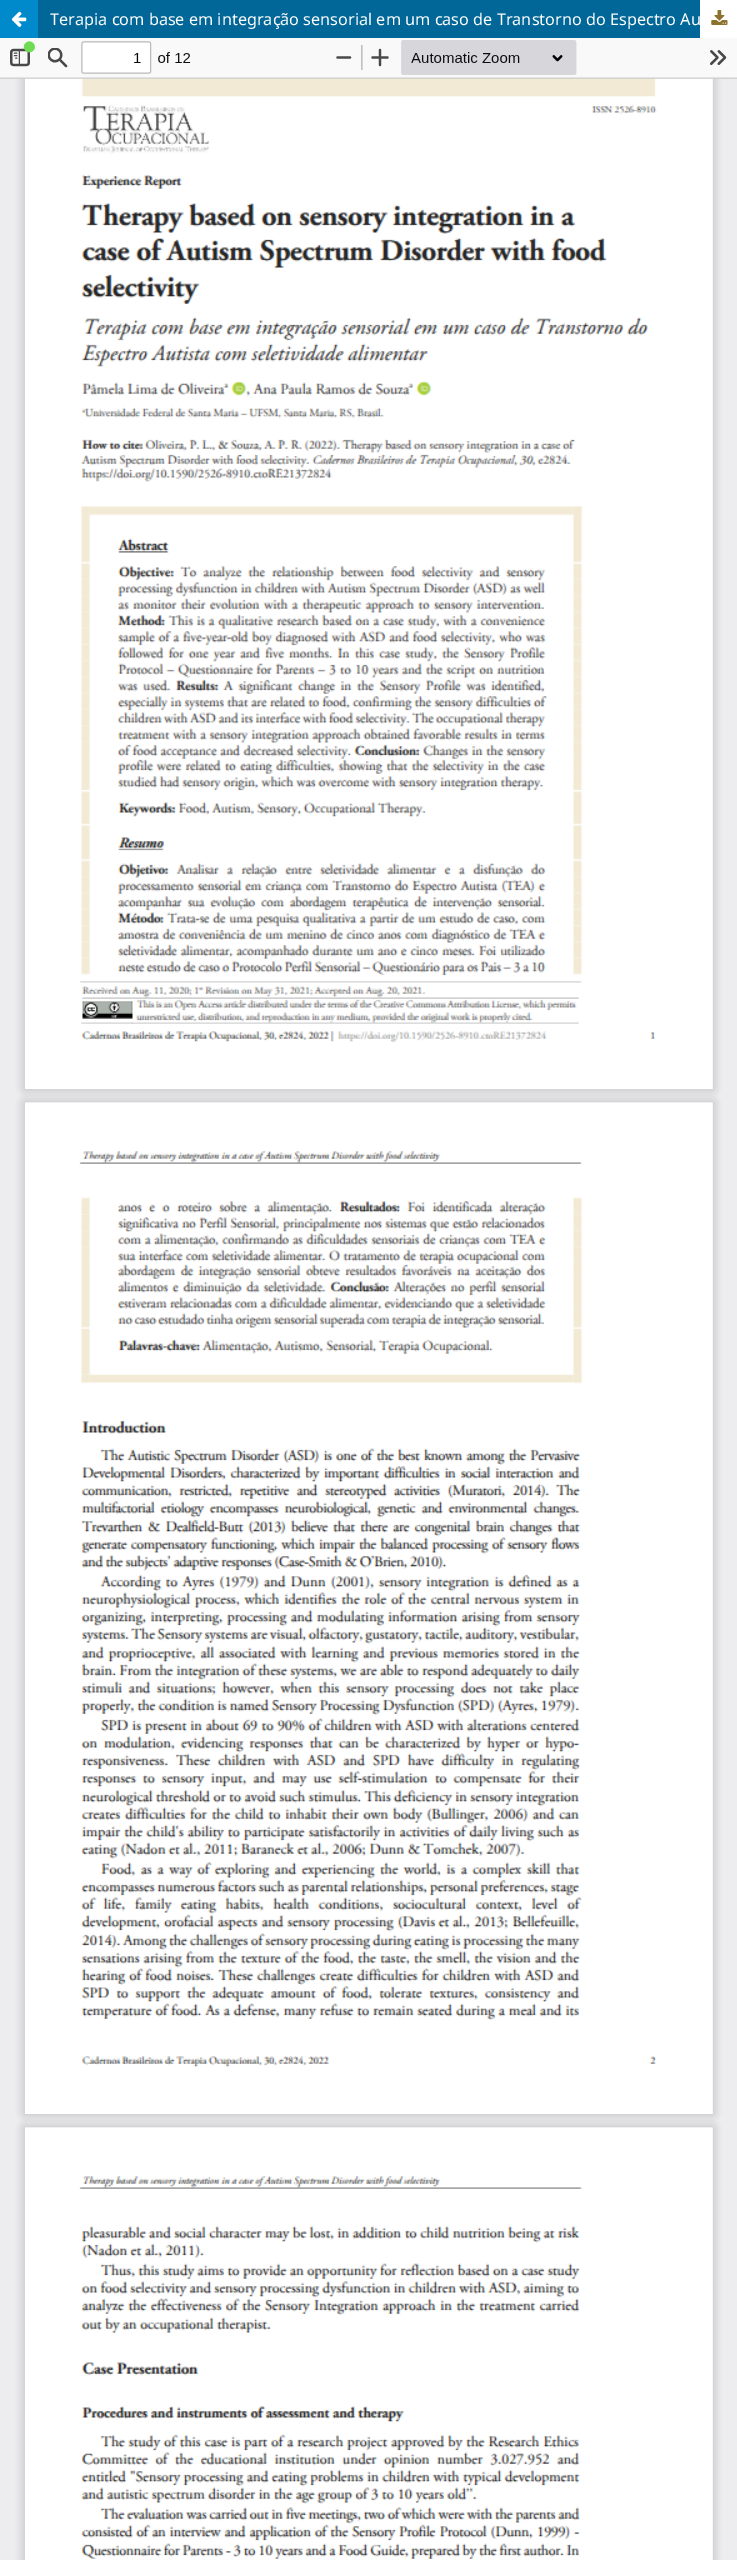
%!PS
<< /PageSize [737 2560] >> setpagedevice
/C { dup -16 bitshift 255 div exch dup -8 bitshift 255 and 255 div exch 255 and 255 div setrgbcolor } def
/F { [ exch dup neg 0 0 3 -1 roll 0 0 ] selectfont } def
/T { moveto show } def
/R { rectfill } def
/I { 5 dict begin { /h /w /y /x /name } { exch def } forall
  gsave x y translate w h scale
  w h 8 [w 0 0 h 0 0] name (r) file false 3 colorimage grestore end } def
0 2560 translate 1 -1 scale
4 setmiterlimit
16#FFFFFF C
0 0 737 2560 R
16#006798 C
38 0 662 38 R
16#008ACB C
0 0 38 38 R
(1.rgb) 11 11 16 16 I
/NotoSans-Regular 16.25 F
16#FFFFFF C
(Terapia com base em integração sensorial em um caso de Transtorno do Espectro Au) 50 25 T
(2.rgb) 711 10 17 15 I
(3.rgb) 0 38 737 2522 I
showpage
